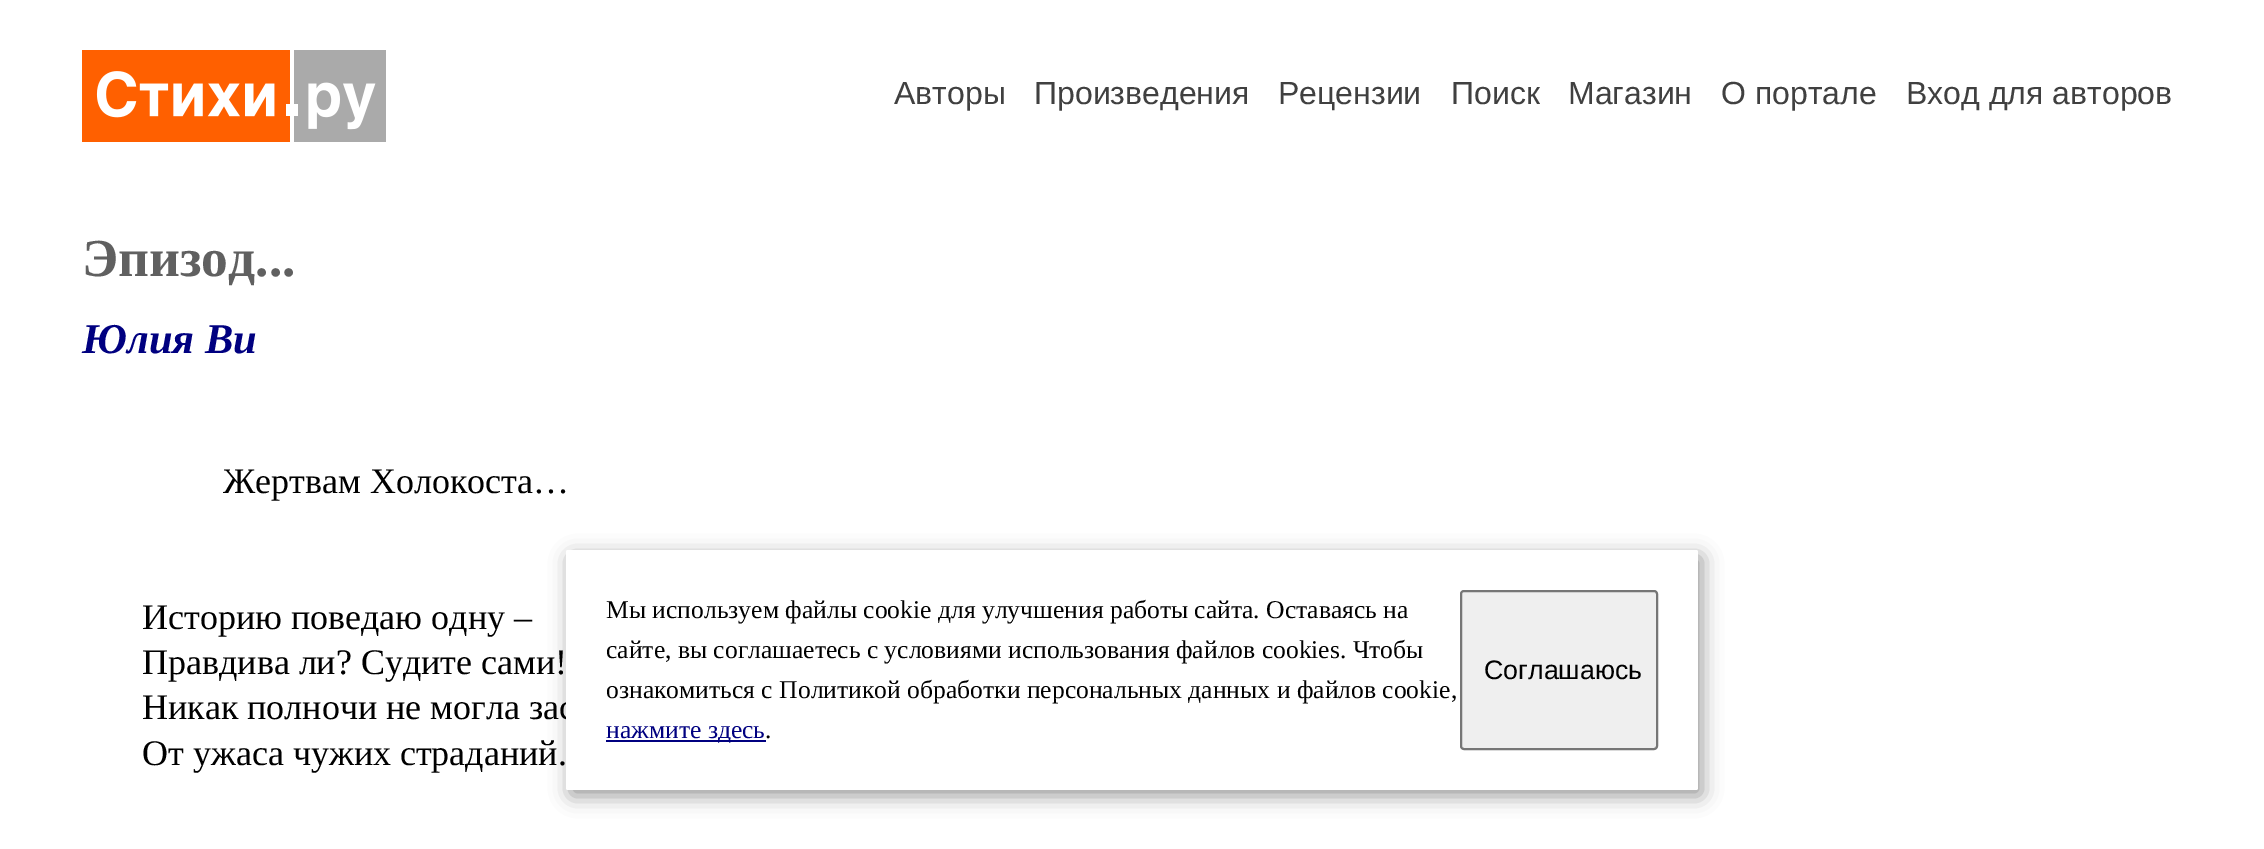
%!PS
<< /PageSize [2264 849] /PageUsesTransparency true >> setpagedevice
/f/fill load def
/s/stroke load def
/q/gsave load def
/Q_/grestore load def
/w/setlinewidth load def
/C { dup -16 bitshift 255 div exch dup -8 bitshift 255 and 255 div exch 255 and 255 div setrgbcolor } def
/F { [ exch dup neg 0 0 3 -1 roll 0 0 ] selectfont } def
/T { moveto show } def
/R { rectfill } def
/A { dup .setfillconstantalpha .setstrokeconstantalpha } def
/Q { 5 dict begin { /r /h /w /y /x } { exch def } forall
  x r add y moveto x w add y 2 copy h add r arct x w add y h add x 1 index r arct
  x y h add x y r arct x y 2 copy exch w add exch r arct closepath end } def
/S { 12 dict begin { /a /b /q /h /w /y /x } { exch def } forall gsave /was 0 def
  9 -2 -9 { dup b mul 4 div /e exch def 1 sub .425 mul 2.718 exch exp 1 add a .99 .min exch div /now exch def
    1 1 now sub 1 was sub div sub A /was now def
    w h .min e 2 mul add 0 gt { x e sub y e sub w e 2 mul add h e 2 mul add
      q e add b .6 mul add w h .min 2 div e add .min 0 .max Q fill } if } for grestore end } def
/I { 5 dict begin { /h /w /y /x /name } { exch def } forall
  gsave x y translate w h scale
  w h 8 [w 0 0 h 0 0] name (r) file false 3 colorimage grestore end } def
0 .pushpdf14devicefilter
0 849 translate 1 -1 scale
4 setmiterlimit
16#FFFFFF C
0 0 2264 849 R
(1.rgb) 82 50 304 92 I
/LiberationSans-Regular 32 F
16#404040 C
(Авторы) 894 104 T
(Произведения) 1034 104 T
(Рецензии) 1278 104 T
(Поиск) 1451 104 T
(Магазин) 1568 104 T
(О портале) 1721 104 T
(Вход для авторов) 1906 104 T
/LiberationSerif-Bold 53.5 F
16#606060 C
(Эпизод...) 82 276 T
/LiberationSerif-BoldItalic 42.5 F
16#000080 C
(Юлия Ви) 82 353 T
/LiberationSerif-Regular 36 F
16#000000 C
(Жертвам Холокоста…) 223 493 T
(Историю поведаю одну –) 142 629 T
(Правдива ли? Судите сами!) 142 674 T
(Никак полночи не могла зас) 142 719 T
(От ужаса чужих страданий.) 142 765 T
570 556 1132 240 2 10 .4 S
16#FFFFFF C
566 550 1132 240 2 Q f
/LiberationSerif-Regular 25.6 F
16#000000 C
(Мы используем файлы cookie для улучшения работы сайта. Оставаясь на) 606 618 T
(сайте, вы соглашаетесь с условиями использования файлов cookies. Чтобы) 606 658 T
(ознакомиться с Политикой обработки персональных данных и файлов cookie,) 606 698 T
16#000080 C
606 740 160 2 R
(нажмите здесь) 606 738 T
16#000000 C
(.) 765 738 T
16#EFEFEF C
1461 591 196 158 3 Q q f Q_
16#767676 C
2 w
s
/LiberationSans-Regular 26.75 F
16#000000 C
(Соглашаюсь) 1484 679 T
.poppdf14devicefilter showpage
